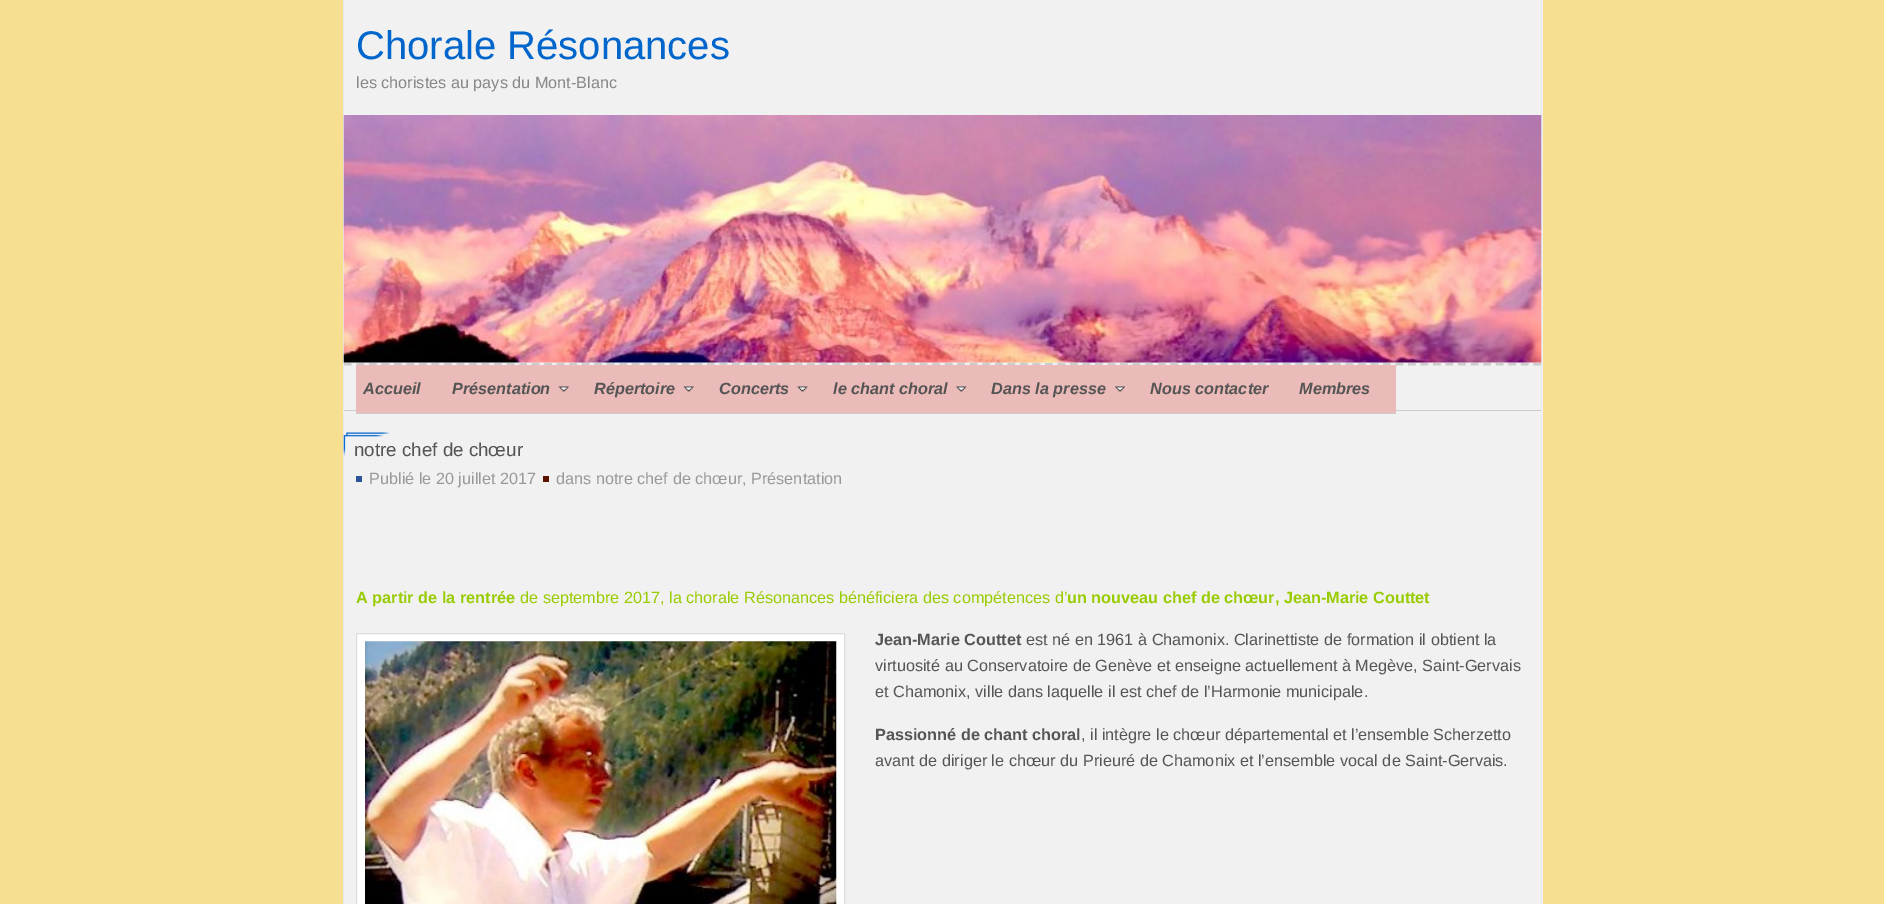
%!PS
<< /PageSize [1884 904] >> setpagedevice
/m/moveto load def
/l/rlineto load def
/z/closepath load def
/f/fill load def
/s/stroke load def
/q/gsave load def
/Q_/grestore load def
/w/setlinewidth load def
/C { dup -16 bitshift 255 div exch dup -8 bitshift 255 and 255 div exch 255 and 255 div setrgbcolor } def
/F { [ exch dup neg 0 0 3 -1 roll 0 0 ] selectfont } def
/T { moveto show } def
/R { rectfill } def
/I { 5 dict begin { /h /w /y /x /name } { exch def } forall
  gsave x y translate w h scale
  w h 8 [w 0 0 h 0 0] name (r) file false 3 colorimage grestore end } def
0 904 translate 1 -1 scale
4 setmiterlimit
16#F7DF91 C
0 0 1884 904 R
16#F1F1F1 C
343 0 1200 904 R
16#E8E8E8 C
1541 0 1 411 R
343 0 1 411 R
/LiberationSans-Regular 40 F
16#0066CC C
(Chorale Résonances) 356 59 T
/LiberationSans-Regular 16.25 F
16#888888 C
(les choristes au pays du Mont-Blanc) 356 88 T
16#CCCCCC C
2.5 w
[7.5 5.02] 0 setdash
344 364 m 1197 0 l s
(1.rgb) 343 115 1199 248 I
344 410 1197 1 R
16#EABBB8 C
356 365 1040 48 R
16#CCCCCC C
356 413 1040 1 R
/LiberationSans-BoldItalic 16.25 F
16#555555 C
(Accueil) 363 394 T
(Présentation) 452 394 T
(2.rgb) 558 386 11 6 I
(Répertoire) 594 394 T
(2.rgb) 683 386 11 6 I
(Concerts) 719 394 T
(3.rgb) 797 386 11 6 I
(le chant choral) 833 394 T
(4.rgb) 956 386 11 6 I
(Dans la presse) 991 394 T
(5.rgb) 1114 386 11 6 I
(Nous contacter) 1150 394 T
(Membres) 1299 394 T
16#E8E8E8 C
1541 414 1 490 R
343 414 1 490 R
(6.rgb) 343 432 47 25 I
/LiberationSans-Regular 18.75 F
16#555555 C
(notre chef de chœur) 354 456 T
16#2A5599 C
356 476 6 6 R
/LiberationSans-Regular 16.25 F
16#999999 C
(Publié le 20 juillet 2017) 369 484 T
16#5B1300 C
543 476 6 6 R
16#999999 C
(dans notre chef de chœur, Présentation) 556 484 T
/LiberationSans-Bold 16.25 F
16#99CC00 C
(A partir de la rentrée) 356 603 T
/LiberationSans-Regular 16.25 F
(de septembre 2017, la chorale Résonances bénéficiera des compétences d’) 520 603 T
/LiberationSans-Bold 16.25 F
(un nouveau chef de chœur, Jean-Marie Couttet) 1067 603 T
16#FFFFFF C
356.5 633.5 m 488 0 l 0 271 l -488 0 l z q f Q_
16#DDDDDD C
1 w
[] 0 setdash
s
(7.rgb) 365 641 472 263 I
16#555555 C
(Jean-Marie Couttet) 875 645 T
/LiberationSans-Regular 16.25 F
(est né en 1961 à Chamonix. Clarinettiste de formation il obtient la) 1026 645 T
(virtuosité au Conservatoire de Genève et enseigne actuellement à Megève, Saint-Gervais) 875 671 T
(et Chamonix, ville dans laquelle il est chef de l’Harmonie municipale.) 875 697 T
/LiberationSans-Bold 16.25 F
(Passionné de chant choral) 875 740 T
/LiberationSans-Regular 16.25 F
(, il intègre le chœur départemental et l’ensemble Scherzetto) 1081 740 T
(avant de diriger le chœur du Prieuré de Chamonix et l’ensemble vocal de Saint-Gervais.) 875 766 T
showpage
